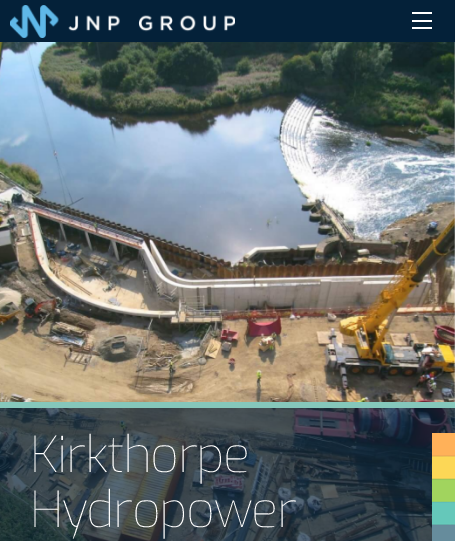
%!PS
<< /PageSize [455 541] /PageUsesTransparency true >> setpagedevice
/m/moveto load def
/C { dup -16 bitshift 255 div exch dup -8 bitshift 255 and 255 div exch 255 and 255 div setrgbcolor } def
/F { [ exch dup neg 0 0 3 -1 roll 0 0 ] selectfont } def
/R { rectfill } def
/A { dup .setfillconstantalpha .setstrokeconstantalpha } def
/I { 5 dict begin { /h /w /y /x /name } { exch def } forall
  gsave x y translate w h scale
  w h 8 [w 0 0 h 0 0] name (r) file false 3 colorimage grestore end } def
0 .pushpdf14devicefilter
0 541 translate 1 -1 scale
4 setmiterlimit
16#FFFFFF C
0 0 455 541 R
16#042139 C
0 0 455 42 R
(1.rgb) 10 5 225 33 I
16#FFFFFF C
412 27 20 2 R
412 12 20 2 R
412 20 20 2 R
(2.rgb) 0 42 455 499 I
0.67 A
16#031F38 C
0 408 455 133 R
1 A
(3.rgb) 432 433 23 108 I
16#85C7BB C
0 402 455 6 R
/Exo-Thin 50 F
16#FFFFFF C
30 472 m -1.5 0 (Kirkthorpe) ashow
30 527 m -1.5 0 (Hydropower) ashow
.poppdf14devicefilter showpage
